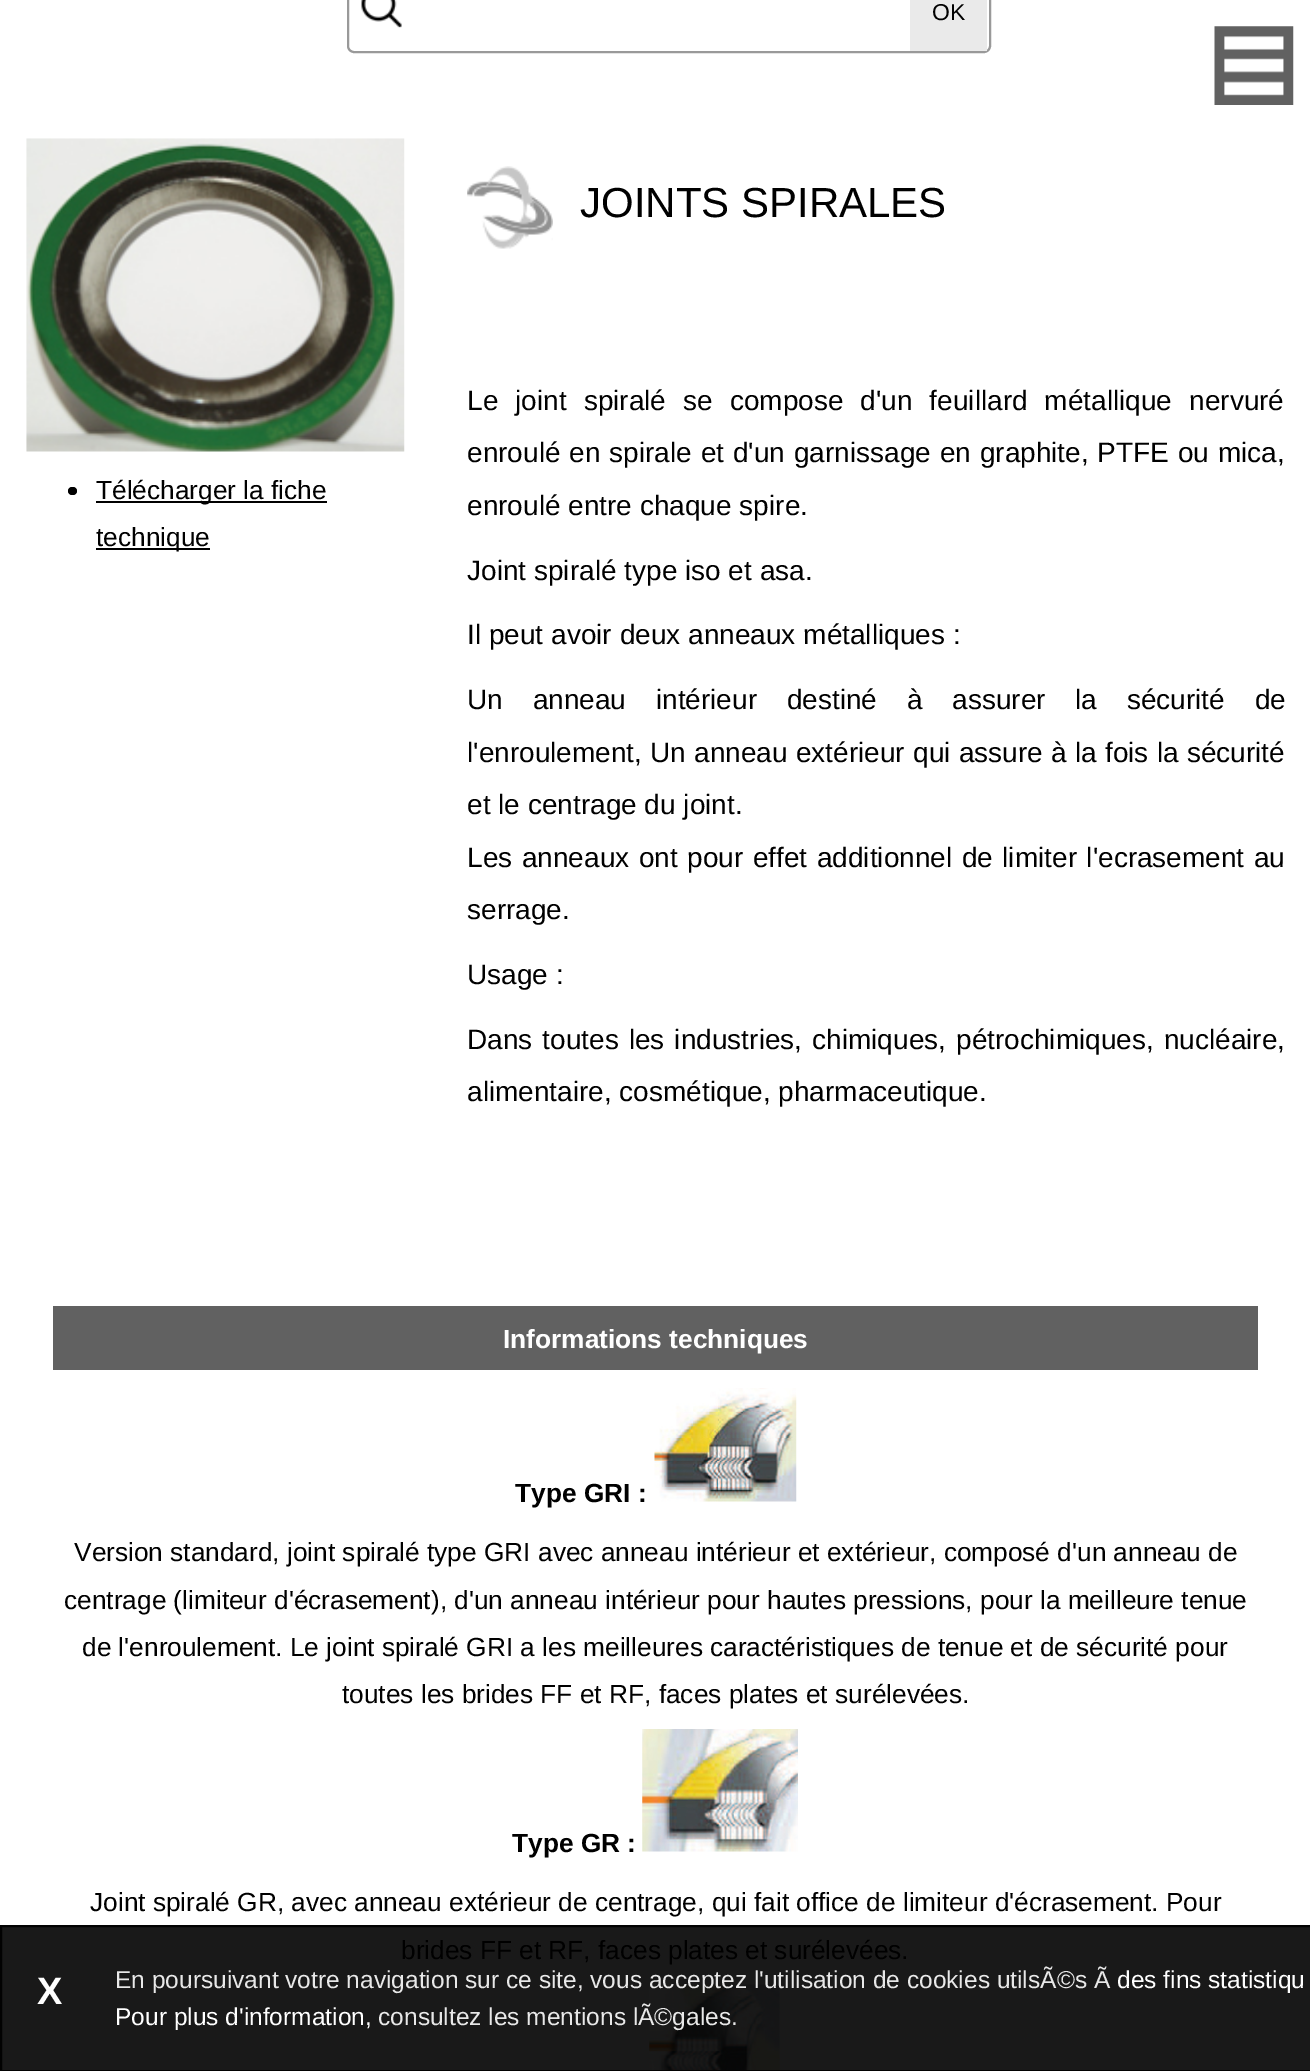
%!PS
<< /PageSize [1310 2071] /PageUsesTransparency true >> setpagedevice
/m/moveto load def
/f/fill load def
/s/stroke load def
/w/setlinewidth load def
/C { dup -16 bitshift 255 div exch dup -8 bitshift 255 and 255 div exch 255 and 255 div setrgbcolor } def
/F { [ exch dup neg 0 0 3 -1 roll 0 0 ] selectfont } def
/T { moveto show } def
/R { rectfill } def
/A { dup .setfillconstantalpha .setstrokeconstantalpha } def
/Q { 5 dict begin { /r /h /w /y /x } { exch def } forall
  x r add y moveto x w add y 2 copy h add r arct x w add y h add x 1 index r arct
  x y h add x y r arct x y 2 copy exch w add exch r arct closepath end } def
/I { 5 dict begin { /h /w /y /x /name } { exch def } forall
  gsave x y translate w h scale
  w h 8 [w 0 0 h 0 0] name (r) file false 3 colorimage grestore end } def
0 .pushpdf14devicefilter
0 2071 translate 1 -1 scale
4 setmiterlimit
16#FFFFFF C
0 0 1310 2071 R
16#191919 C
0 1925 1310 146 R
16#999999 C
2 w
348 -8 642 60 6 Q s
(1.rgb) 361 0 41 28 I
16#EAEAEA C
910 0 77 51 R
/LiberationSans-Regular 23 F
16#000000 C
(OK) 932 20 T
(2.rgb) 1214 26 80 79 I
(3.rgb) 26 138 379 314 I
68 487 9 8 4 Q f
96 501 231 2 R
/LiberationSans-Regular 26.25 F
(Télécharger la fiche) 96 499 T
96 548 114 2 R
(technique) 96 546 T
(4.rgb) 467 166 86 83 I
/LiberationSans-Regular 42 F
(JOINTS SPIRALES) 580 217 T
/LiberationSans-Regular 28 F
467 410 m 9.25 0 32 (Le joint spiralé se compose d'un feuillard métallique nervuré) widthshow
467 462 m 1.1 0 32 (enroulé en spirale et d'un garnissage en graphite, PTFE ou mica,) widthshow
(enroulé entre chaque spire.) 467 515 T
(Joint spiralé type iso et asa.) 467 580 T
(Il peut avoir deux anneaux métalliques :) 467 644 T
467 709 m 22 0 32 (Un anneau intérieur destiné à assurer la sécurité de) widthshow
(l'enroulement,) 467 762 T
650 762 m .5 0 32 (Un anneau extérieur qui assure à la fois la sécurité) widthshow
(et le centrage du joint.) 467 814 T
467 867 m 1.75 0 32 (Les anneaux ont pour effet additionnel de limiter l'ecrasement au) widthshow
(serrage.) 467 919 T
(Usage :) 467 984 T
467 1049 m 2.25 0 32 (Dans toutes les industries, chimiques, pétrochimiques, nucléaire,) widthshow
(alimentaire, cosmétique, pharmaceutique.) 467 1101 T
16#616161 C
53 1306 1205 64 R
/LiberationSans-Bold 26.25 F
16#FFFFFF C
(Informations techniques) 503 1348 T
16#000000 C
(Type GRI :) 515 1502 T
(5.rgb) 654 1388 143 114 I
/LiberationSans-Regular 26.25 F
(Version standard, joint spiralé type GRI avec anneau intérieur et extérieur, composé d'un anneau de) 74 1561 T
(centrage \(limiteur d'écrasement\), d'un anneau intérieur pour hautes pressions, pour la meilleure tenue) 64 1609 T
(de l'enroulement. Le joint spiralé GRI a les meilleures caractéristiques de tenue et de sécurité pour) 82 1656 T
(toutes les brides FF et RF, faces plates et surélevées.) 342 1703 T
/LiberationSans-Bold 26.25 F
(Type GR :) 512 1852 T
(6.rgb) 642 1729 156 123 I
/LiberationSans-Regular 26.25 F
(Joint spiralé GR, avec anneau extérieur de centrage, qui fait office de limiteur d'écrasement. Pour) 90 1911 T
(brides FF et RF, faces plates et surélevées.) 401 1959 T
(7.rgb) 649 1984 131 87 I
0.9 A
1 1926 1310 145 rectstroke
/LiberationSans-Bold 38 F
1 A
16#FFFFFF C
(X) 37 2004 T
/LiberationSans-Regular 24.5 F
16#E8E8E8 C
(En poursuivant votre navigation sur ce site, vous acceptez l'utilisation de cookies utilsÃ©s Ã) 115 1988 T
16#FFFFFF C
(des fins statistiqu) 1117 1988 T
(Pour plus d'information,) 115 2025 T
16#E8E8E8 C
(consultez les mentions lÃ©gales.) 378 2025 T
.poppdf14devicefilter showpage
